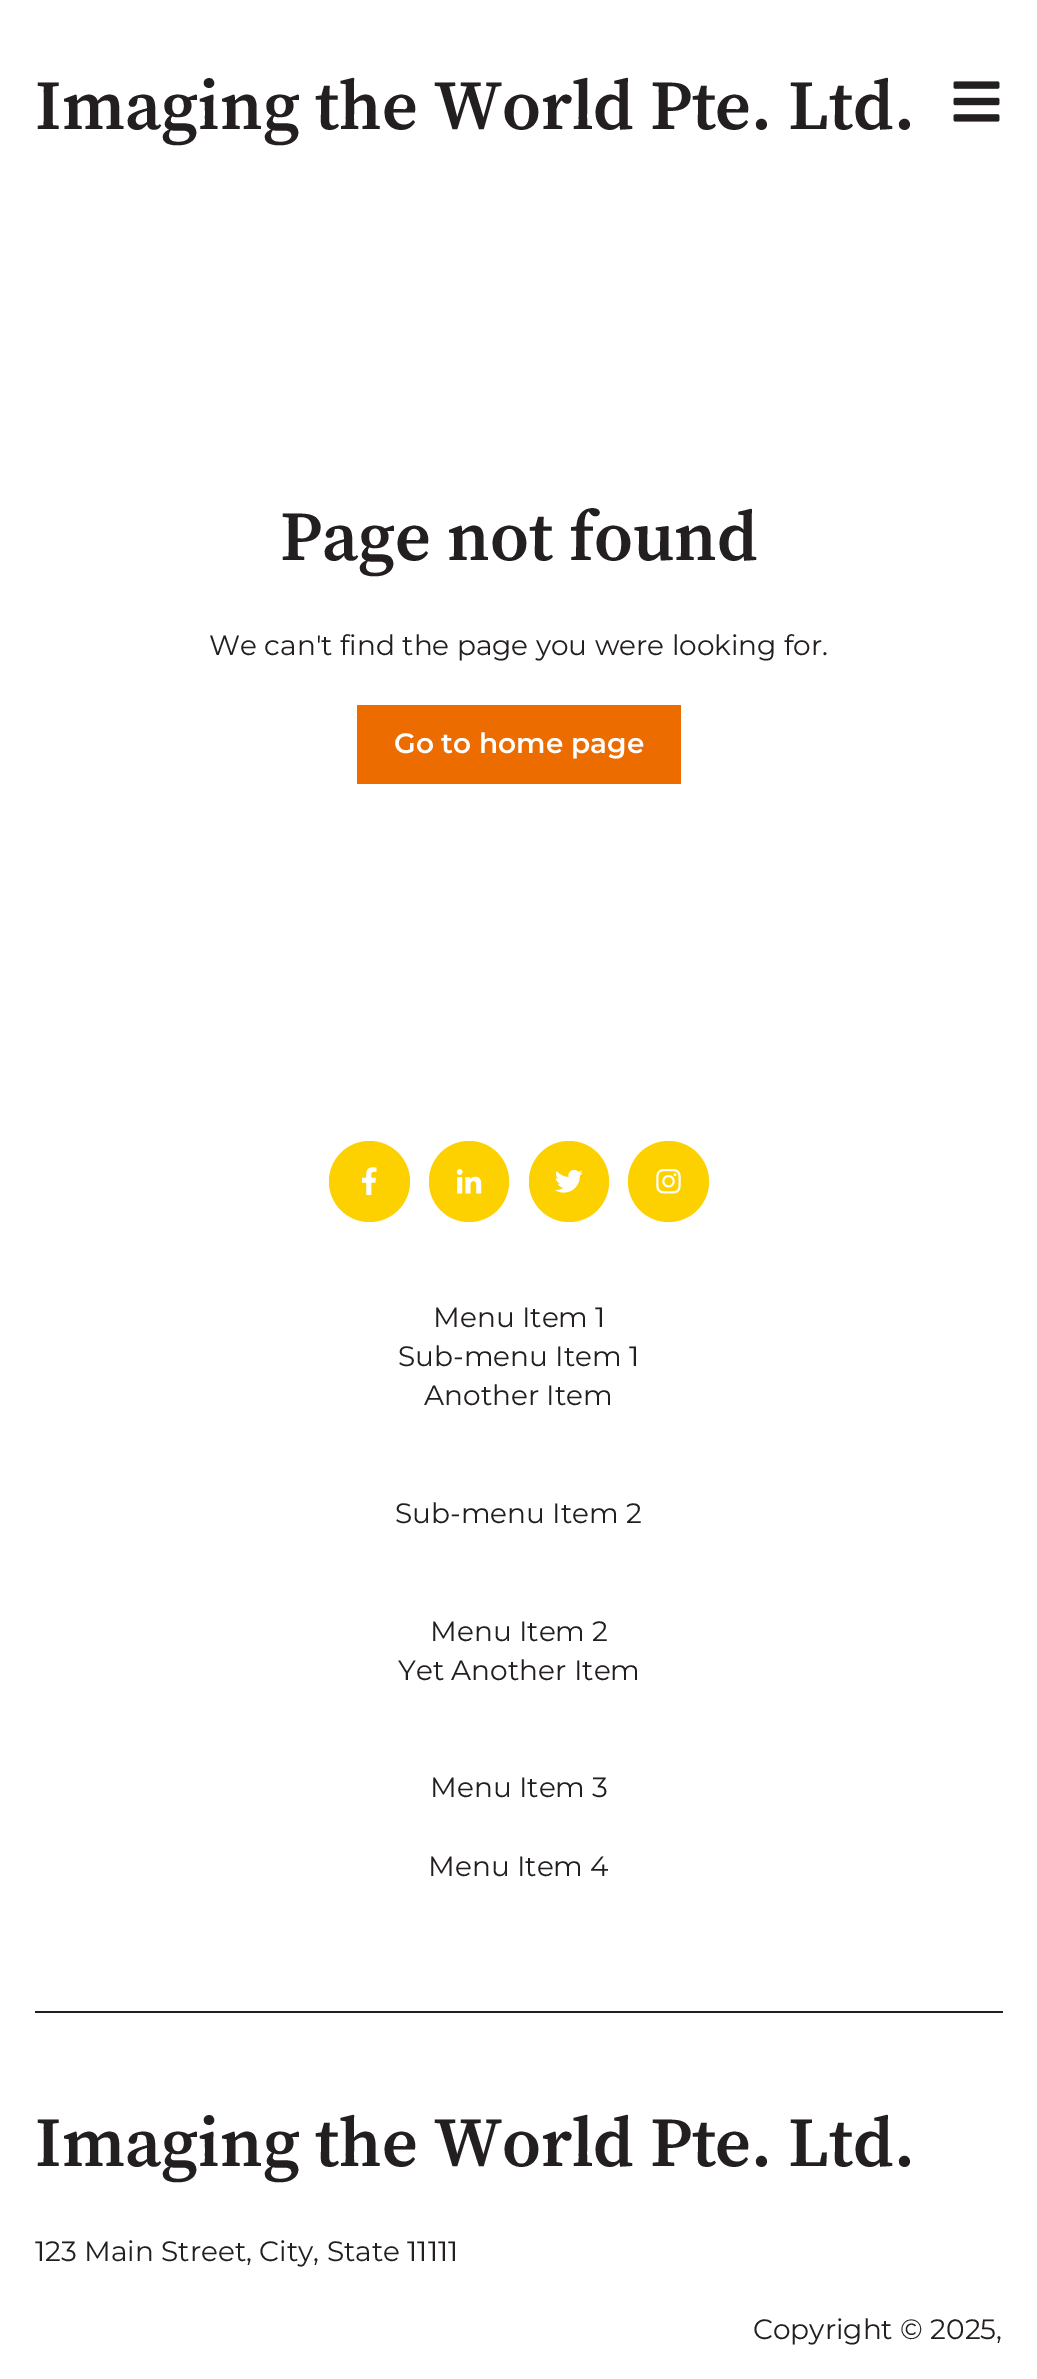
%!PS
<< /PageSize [1037 2379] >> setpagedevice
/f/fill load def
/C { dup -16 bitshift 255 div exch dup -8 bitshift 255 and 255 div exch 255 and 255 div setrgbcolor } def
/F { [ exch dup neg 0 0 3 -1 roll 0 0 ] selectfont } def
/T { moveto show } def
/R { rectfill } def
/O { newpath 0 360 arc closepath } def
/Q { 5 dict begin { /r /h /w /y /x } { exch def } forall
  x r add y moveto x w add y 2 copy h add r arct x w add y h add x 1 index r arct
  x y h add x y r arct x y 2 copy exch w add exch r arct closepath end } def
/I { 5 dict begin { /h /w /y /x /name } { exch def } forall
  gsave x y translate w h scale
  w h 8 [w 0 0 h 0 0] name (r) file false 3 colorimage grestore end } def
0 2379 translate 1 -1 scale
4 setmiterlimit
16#FFFFFF C
0 0 1037 2379 R
/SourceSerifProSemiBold-SemiBold 70 F
16#231F20 C
(Imaging the World Pte. Ltd.) 35 129 T
(1.rgb) 953 81 47 41 I
(Page not found) 280 560 T
/Montserrat-Regular 28 F
(We can't find the page you were looking for.) 209 655 T
16#ED6C00 C
357 705 324 79 R
/Montserrat-SemiBold 28 F
16#FFFFFF C
(Go to home page) 394 753 T
16#FDD000 C
369.5 1181.5 40.5 O f
(2.rgb) 362 1167 15 28 I
429 1141 80 81 40 Q f
(3.rgb) 456 1169 26 25 I
529 1141 80 81 40 Q f
(4.rgb) 555 1169 28 24 I
668.5 1181.5 40.5 O f
(5.rgb) 656 1169 25 25 I
/Montserrat-Regular 28 F
16#231F20 C
(Menu Item 1) 433 1327 T
(Sub-menu Item 1) 398 1366 T
(Another Item) 424 1405 T
(Sub-menu Item 2) 395 1523 T
(Menu Item 2) 430 1641 T
(Yet Another Item) 398 1680 T
(Menu Item 3) 430 1797 T
(Menu Item 4) 428 1876 T
35 2011 968 2 R
/SourceSerifProSemiBold-SemiBold 70 F
(Imaging the World Pte. Ltd.) 35 2166 T
/Montserrat-Regular 28 F
(123 Main Street, City, State 11111) 35 2261 T
(Copyright © 2025,) 753 2339 T
showpage
